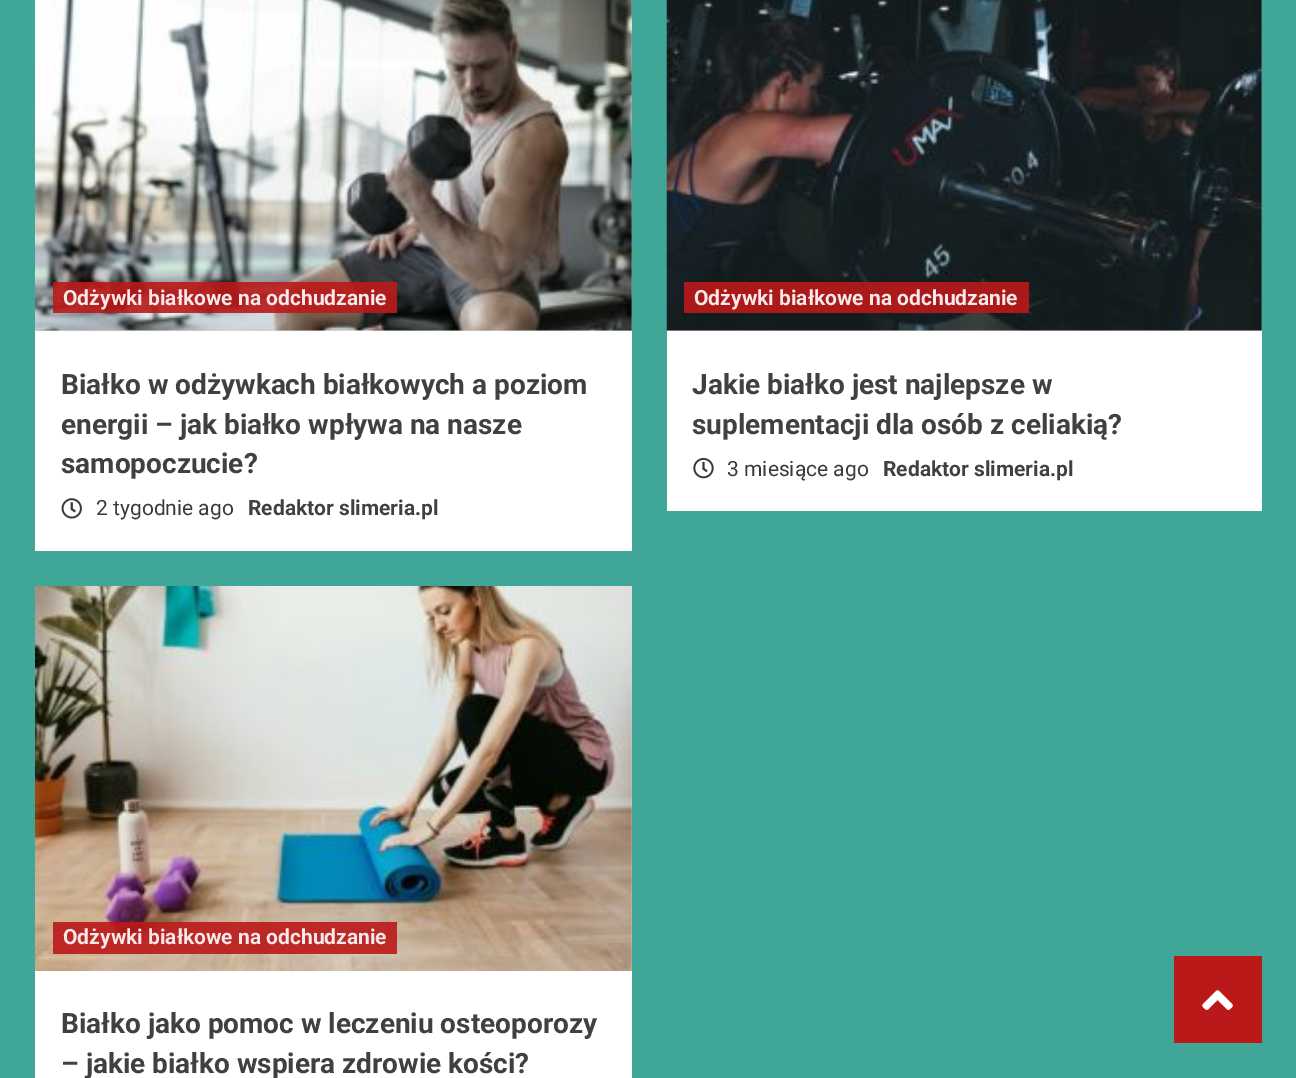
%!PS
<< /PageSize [1296 1078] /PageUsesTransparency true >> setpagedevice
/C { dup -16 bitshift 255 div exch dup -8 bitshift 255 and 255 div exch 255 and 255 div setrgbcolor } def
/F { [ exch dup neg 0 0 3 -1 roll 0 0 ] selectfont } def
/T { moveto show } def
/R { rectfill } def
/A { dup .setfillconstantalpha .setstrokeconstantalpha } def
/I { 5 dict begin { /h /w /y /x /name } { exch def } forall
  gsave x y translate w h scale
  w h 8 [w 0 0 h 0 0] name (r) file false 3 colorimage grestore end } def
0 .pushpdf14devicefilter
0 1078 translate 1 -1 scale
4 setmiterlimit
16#40A698 C
0 0 1296 1078 R
16#FFFFFF C
35 331 597 220 R
16#D8D8D8 C
35 0 597 331 R
(1.rgb) 35 0 597 331 I
0.9 A
16#BB1919 C
53 282 344 31 R
/Roboto-Bold 21 F
1 A
16#F7E9E9 C
(Odżywki białkowe na odchudzanie) 63 305 T
/Roboto-Bold 28 F
16#404040 C
(Białko w odżywkach białkowych a poziom) 61 394 T
(energii – jak białko wpływa na nasze) 61 434 T
(samopoczucie?) 61 473 T
(2.rgb) 61 498 21 21 I
/Roboto-Regular 21 F
16#3A3A3A C
(2 tygodnie ago) 96 515 T
/Roboto-Bold 21 F
16#404040 C
(Redaktor slimeria.pl) 248 515 T
16#FFFFFF C
667 331 595 180 R
16#D8D8D8 C
667 0 595 331 R
(3.rgb) 666 0 596 331 I
0.9 A
16#BB1919 C
684 282 345 31 R
1 A
16#F7E9E9 C
(Odżywki białkowe na odchudzanie) 694 305 T
/Roboto-Bold 28 F
16#404040 C
(Jakie białko jest najlepsze w) 692 394 T
(suplementacji dla osób z celiakią?) 692 434 T
(4.rgb) 693 457 21 22 I
/Roboto-Regular 21 F
16#3A3A3A C
(3 miesiące ago) 727 476 T
/Roboto-Bold 21 F
16#404040 C
(Redaktor slimeria.pl) 883 476 T
16#FFFFFF C
35 586 597 492 R
(5.rgb) 35 586 597 385 I
0.9 A
16#BB1919 C
53 922 344 32 R
1 A
16#F7E9E9 C
(Odżywki białkowe na odchudzanie) 63 944 T
/Roboto-Bold 28 F
16#404040 C
(Białko jako pomoc w leczeniu osteoporozy) 61 1033 T
(– jakie białko wspiera zdrowie kości?) 61 1073 T
16#BB1919 C
1174 956 88 87 R
(6.rgb) 1202 990 31 20 I
.poppdf14devicefilter showpage
